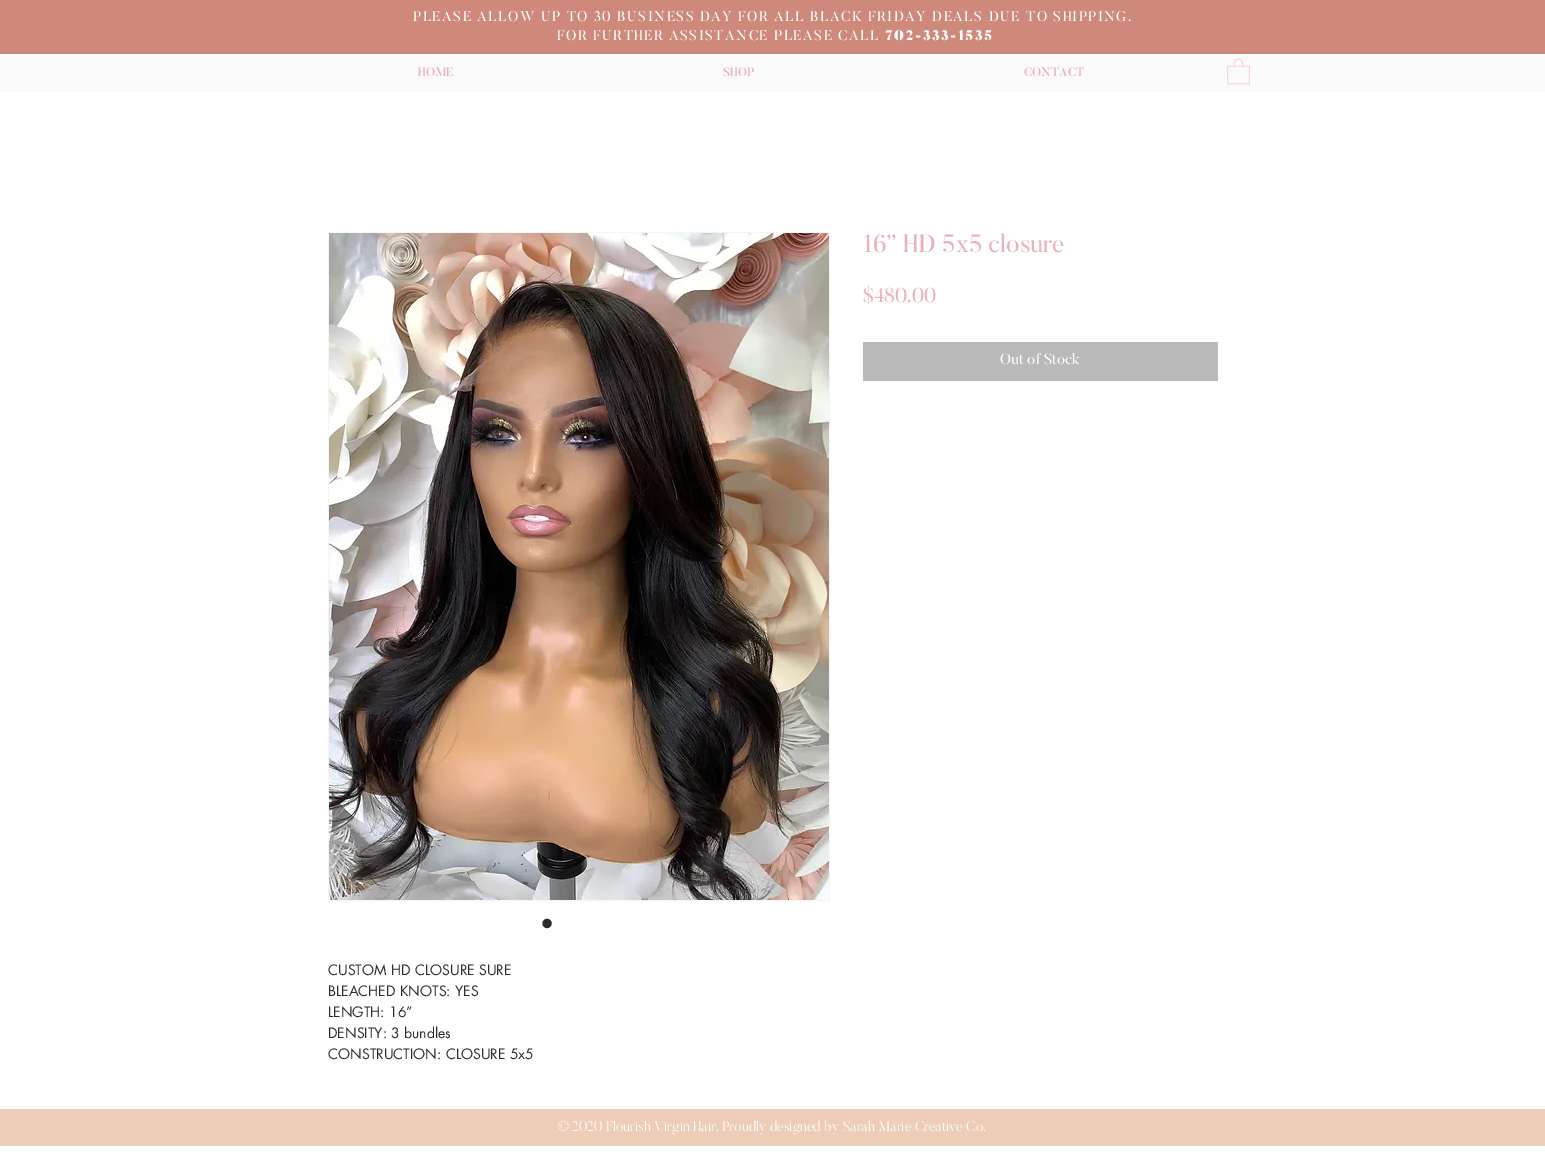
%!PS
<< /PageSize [1545 1155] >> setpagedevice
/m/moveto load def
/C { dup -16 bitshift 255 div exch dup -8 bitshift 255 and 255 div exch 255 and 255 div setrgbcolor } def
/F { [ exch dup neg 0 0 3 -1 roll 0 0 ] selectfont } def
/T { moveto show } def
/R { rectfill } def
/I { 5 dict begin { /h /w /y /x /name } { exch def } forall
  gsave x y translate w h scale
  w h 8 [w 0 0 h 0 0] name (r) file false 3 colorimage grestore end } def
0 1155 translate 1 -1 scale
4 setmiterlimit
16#FFFFFF C
0 0 1545 1155 R
16#CE897B C
0 0 1545 54 R
/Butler-Regular 14 F
16#FFFFFF C
413 21 m 1.4 0 (PLEASE ALLOW UP TO 30 BUSINESS DAY FOR ALL BLACK FRIDAY DEALS DUE TO SHIPPING.) ashow
557 40 m 1.4 0 (FOR FURTHER ASSISTANCE PLEASE CALL) ashow
/Butler-Black 14 F
885 40 m 1.4 0 (702-333-1535) ashow
16#FAFAFA C
0 56 1545 36 R
/Butler-Medium 12 F
16#EBB0BC C
(HOME) 418 76 T
(SHOP) 723 76 T
(CONTACT) 1024 76 T
(1.rgb) 1227 58 23 27 I
/Butler-Regular 25 F
(16” HD 5x5 closure) 863 252 T
/Butler-Regular 20 F
($480.00) 863 302 T
16#B9B9B9 C
863 342 355 39 R
/Butler-Regular 15 F
16#FFFFFF C
(Out of Stock) 1000 364 T
16#F5F5F5 C
328.5 232.5 501 668 rectstroke
(2.rgb) 329 233 500 667 I
/LiberationSans-Regular 35 F
16#2C2C2B C
(•) 541 935 T
/futura-Regular 14 F
(CUSTOM HD CLOSURE SURE) 328 975 T
(BLEACHED KNOTS: YES) 328 996 T
(LENGTH: 16”) 328 1017 T
(DENSITY: 3 bundles) 328 1038 T
(CONSTRUCTION: CLOSURE 5x5) 328 1059 T
16#EDCDB7 C
0 1109 1545 37 R
/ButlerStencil-Light 14 F
16#FFFFFF C
(© 2020 Flourish Virgin Hair. Proudly designed by Sarah Marie Creative Co.) 558 1131 T
showpage
